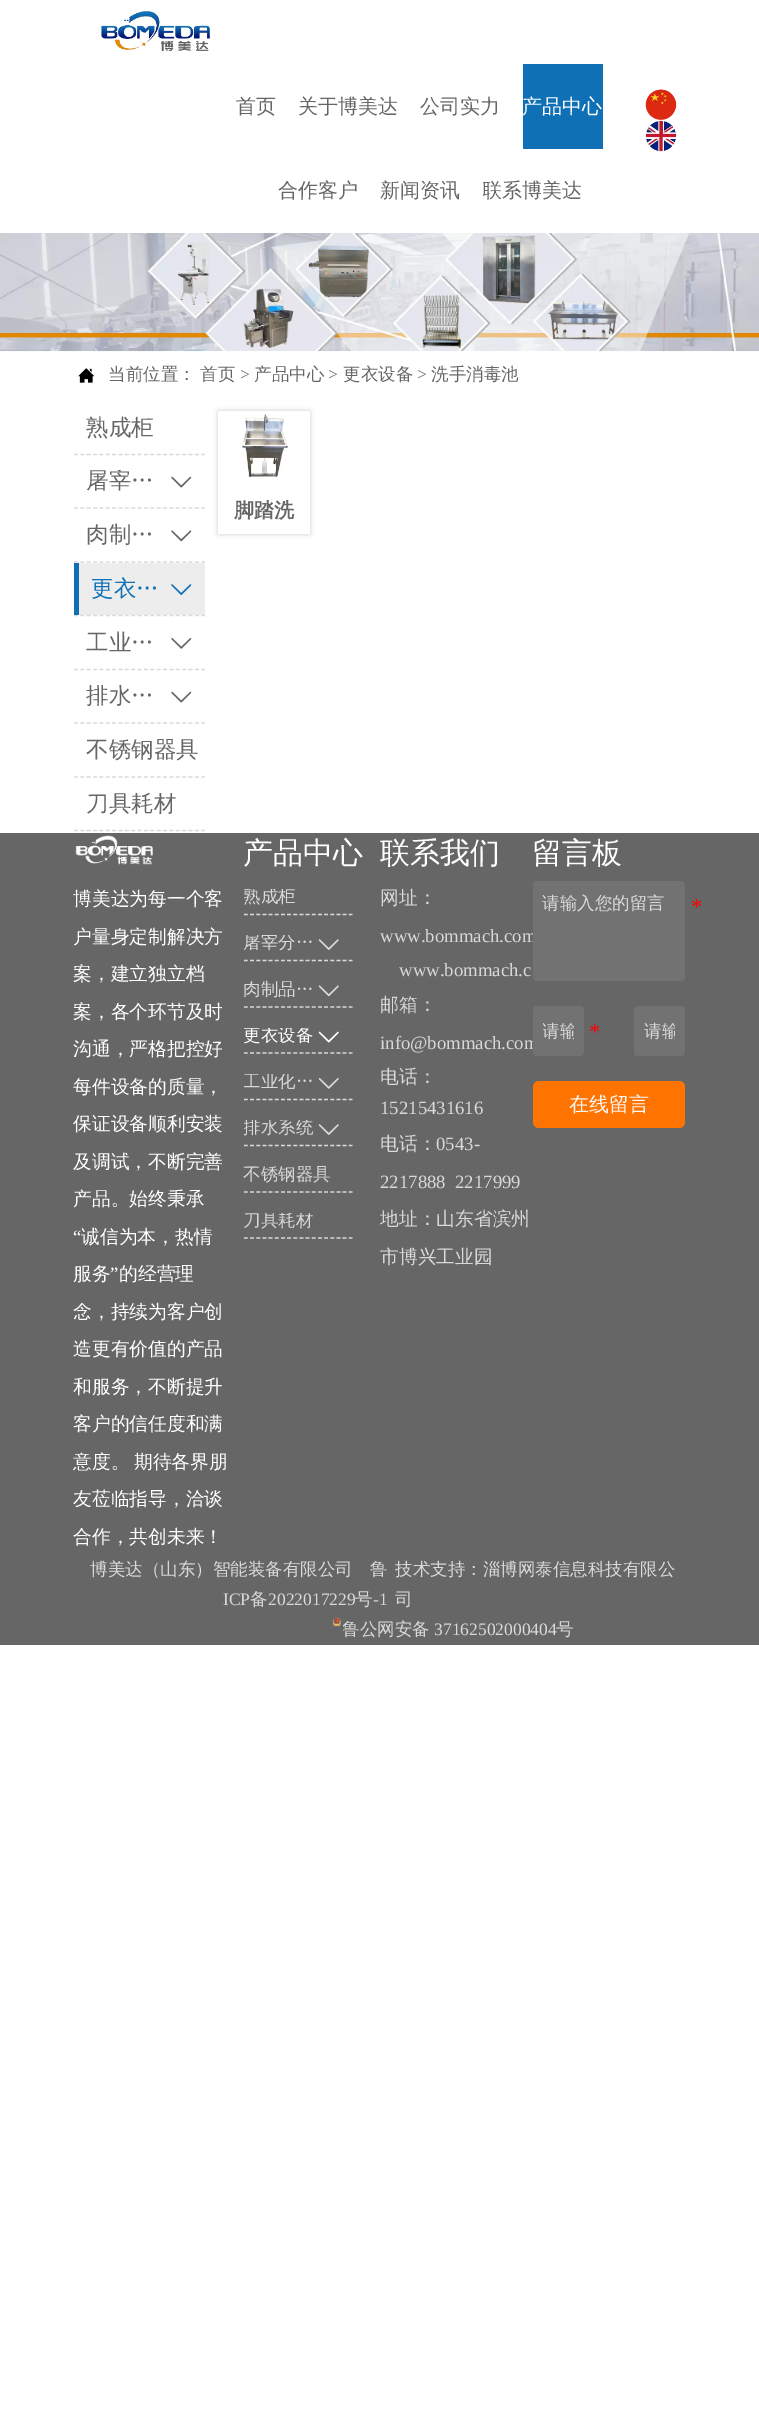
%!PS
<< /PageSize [759 2411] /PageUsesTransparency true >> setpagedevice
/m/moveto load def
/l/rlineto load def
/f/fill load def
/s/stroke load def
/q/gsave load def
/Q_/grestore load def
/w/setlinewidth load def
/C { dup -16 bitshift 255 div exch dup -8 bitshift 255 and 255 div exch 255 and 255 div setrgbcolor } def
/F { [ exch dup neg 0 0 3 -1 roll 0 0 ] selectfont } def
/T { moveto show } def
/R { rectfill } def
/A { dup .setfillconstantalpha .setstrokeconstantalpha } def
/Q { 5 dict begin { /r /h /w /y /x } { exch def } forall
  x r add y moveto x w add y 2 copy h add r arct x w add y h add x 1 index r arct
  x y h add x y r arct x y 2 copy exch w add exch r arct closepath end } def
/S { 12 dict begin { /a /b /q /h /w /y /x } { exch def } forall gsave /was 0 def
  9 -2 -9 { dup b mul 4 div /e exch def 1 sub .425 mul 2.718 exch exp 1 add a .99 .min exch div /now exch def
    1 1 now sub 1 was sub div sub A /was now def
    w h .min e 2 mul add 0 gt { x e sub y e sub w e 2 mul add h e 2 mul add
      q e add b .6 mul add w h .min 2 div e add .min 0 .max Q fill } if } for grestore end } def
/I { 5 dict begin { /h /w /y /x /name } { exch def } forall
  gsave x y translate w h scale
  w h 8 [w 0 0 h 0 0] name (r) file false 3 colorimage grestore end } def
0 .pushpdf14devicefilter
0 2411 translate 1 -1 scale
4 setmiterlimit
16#FFFFFF C
0 0 759 2411 R
(1.rgb) 101 11 109 40 I
/WenQuanYiZenHei-Medium 20 F
16#666666 C
(首页) 236 113 T
(关于博美达) 298 113 T
(公司实力) 420 113 T
16#1070B5 C
523 64 80 85 R
16#FFFFFF C
(产品中心) 522 113 T
16#666666 C
(合作客户) 278 197 T
(新闻资讯) 380 197 T
q
483 178 100 27 rectclip
(联系博美达) 482 197 T
Q_
(2.rgb) 645 89 32 31 I
(3.rgb) 645 120 32 32 I
(4.rgb) 0 233 759 119 I
(5.rgb) 78 368 17 15 I
/WenQuanYiZenHei-Medium 17.5 F
(当前位置：) 108 380 T
(首页) 200 380 T
/LiberationSerif-Regular 17.5 F
(>) 240 380 T
/WenQuanYiZenHei-Medium 17.5 F
(产品中心) 254 380 T
/LiberationSerif-Regular 17.5 F
(>) 328 380 T
/WenQuanYiZenHei-Medium 17.5 F
(更衣设备) 343 380 T
/LiberationSerif-Regular 17.5 F
(>) 417 380 T
/WenQuanYiZenHei-Medium 17.5 F
(洗手消毒池) 431 380 T
16#D9D9D9 C
1.2 w
[3.75 2.62] 0 setdash
74 454.5 m 131 0 l s
/WenQuanYiZenHei-Medium 22.5 F
16#666666 C
(熟成柜) 86 435 T
16#D9D9D9 C
74 508 m 131 0 l s
q
74 470 94 23 rectclip
16#666666 C
(屠宰…) 86 488 T
Q_
(6.rgb) 171 476 21 12 I
74 562 m 131 0 l s
16#666666 C
(肉制…) 86 542 T
(7.rgb) 171 530 21 12 I
16#D9D9D9 C
74 615.5 m 131 0 l s
0.48 A
79 563 126 52 R
1 A
16#1070B5 C
74 563 5 52 R
(更衣…) 91 596 T
(8.rgb) 171 584 21 11 I
16#D9D9D9 C
74 669.5 m 131 0 l s
16#666666 C
(工业…) 86 650 T
(9.rgb) 171 638 21 11 I
16#D9D9D9 C
74 723 m 131 0 l s
q
74 685 94 23 rectclip
16#666666 C
(排水…) 86 703 T
Q_
(6.rgb) 171 691 21 12 I
74 777 m 131 0 l s
16#666666 C
(不锈钢器具) 86 757 T
16#D9D9D9 C
74 830.5 m 131 0 l s
q
74 793 131 22 rectclip
16#666666 C
(刀具耗材) 86 811 T
Q_
16#CCCCCC C
218 411 92 123 0 2.5 1 S
16#FFFFFF C
218 411 92 123 R
(10.rgb) 242 414 46 63 I
/WenQuanYiZenHei-Bold 20 F
16#666666 C
(脚踏洗) 234 517 T
0 833 759 812 R
(11.rgb) 75 835 78 30 I
/WenQuanYiZenHei-Medium 18.75 F
16#FFFFFF C
(博美达为每一个客) 73 905 T
(户量身定制解决方) 73 943 T
(案，建立独立档) 73 980 T
(案，各个环节及时) 73 1018 T
(沟通，严格把控好) 73 1055 T
(每件设备的质量，) 73 1093 T
(保证设备顺利安装) 73 1130 T
(及调试，不断完善) 73 1168 T
(产品。始终秉承) 73 1205 T
/LiberationSerif-Regular 18.75 F
(“) 73 1243 T
/WenQuanYiZenHei-Medium 18.75 F
(诚信为本，热情) 81 1243 T
(服务) 73 1280 T
/LiberationSerif-Regular 18.75 F
(”) 110 1280 T
/WenQuanYiZenHei-Medium 18.75 F
(的经营理) 119 1280 T
(念，持续为客户创) 73 1318 T
(造更有价值的产品) 73 1355 T
(和服务，不断提升) 73 1393 T
(客户的信任度和满) 73 1430 T
73 1468 m -1 0 32 (意度。 期待各界朋) widthshow
(友莅临指导，洽谈) 73 1505 T
(合作，共创未来！) 73 1543 T
/WenQuanYiZenHei-Medium 30 F
(产品中心) 243 863 T
16#D9D9D9 C
[3.75 2.42] 0 setdash
244 914.5 m 108.5 0 l s
q
244 889 109 17 rectclip
/WenQuanYiZenHei-Medium 17.5 F
(熟成柜) 243 902 T
Q_
244 960.5 m 108.5 0 l s
q
244 935 71 18 rectclip
/WenQuanYiZenHei-Medium 17.5 F
(屠宰分…) 243 948 T
Q_
(12.rgb) 318 939 21 11 I
244 1007 m 108.5 0 l s
/WenQuanYiZenHei-Medium 17.5 F
(肉制品…) 243 995 T
(13.rgb) 318 985 21 12 I
244 1053 m 108.5 0 l s
q
244 1028 71 17 rectclip
16#FFFFFF C
(更衣设备) 243 1041 T
Q_
(14.rgb) 318 1031 21 12 I
244 1099.5 m 108.5 0 l s
q
244 1074 71 17 rectclip
(工业化…) 243 1087 T
Q_
(15.rgb) 318 1078 21 11 I
244 1145.5 m 108.5 0 l s
q
244 1120 71 18 rectclip
(排水系统) 243 1133 T
Q_
(12.rgb) 318 1124 21 11 I
244 1192 m 108.5 0 l s
(不锈钢器具) 243 1180 T
244 1238 m 108.5 0 l s
q
244 1213 109 17 rectclip
(刀具耗材) 243 1226 T
Q_
/WenQuanYiZenHei-Medium 30 F
16#FFFFFF C
(联系我们) 380 863 T
/WenQuanYiZenHei-Medium 18.75 F
16#D9D9D9 C
(网址：) 380 904 T
/LiberationSerif-Regular 18.75 F
(www.bommach.com) 380 942 T
(www.bommach.c) 399 976 T
/WenQuanYiZenHei-Medium 18.75 F
(邮箱：) 380 1011 T
/LiberationSerif-Regular 18.75 F
(info@bommach.com) 380 1049 T
/WenQuanYiZenHei-Medium 18.75 F
(电话：) 380 1083 T
/LiberationSerif-Regular 18.75 F
(15215431616) 380 1114 T
/WenQuanYiZenHei-Medium 18.75 F
(电话：) 380 1150 T
/LiberationSerif-Regular 18.75 F
(0543-) 436 1150 T
(2217888  2217999) 380 1188 T
/WenQuanYiZenHei-Medium 18.75 F
(地址：山东省滨州) 380 1225 T
(市博兴工业园) 380 1263 T
/WenQuanYiZenHei-Medium 30 F
16#FFFFFF C
(留言板) 532 863 T
16#727272 C
533 881 152 100 4 Q f
/WenQuanYiZenHei-Medium 17.5 F
16#D9D9D9 C
(请输入您的留言) 542 909 T
/LiberationSerif-Regular 22.5 F
16#FF0000 C
(*) 691 914 T
16#727272 C
533 1006 51 50 4 Q f
q
543 1020 31 23 rectclip
/WenQuanYiZenHei-Medium 17.5 F
16#D9D9D9 C
(请输) 542 1037 T
Q_
16#FF0000 C
(*) 589 1039 T
16#727272 C
634 1006 51 50 4 Q f
q
644 1020 31 23 rectclip
/WenQuanYiZenHei-Medium 17.5 F
16#D9D9D9 C
(请输) 644 1037 T
Q_
16#FF7300 C
533 1081 152 47 6 Q f
/WenQuanYiZenHei-Medium 20 F
16#F9F9F9 C
(在线留言) 569 1111 T
/WenQuanYiZenHei-Medium 17.5 F
16#D9D9D9 C
(博美达（山东）智能装备有限公司) 90 1575 T
(鲁) 370 1575 T
/LiberationSerif-Regular 17.5 F
(ICP) 223 1605 T
/WenQuanYiZenHei-Medium 17.5 F
(备) 250 1605 T
/LiberationSerif-Regular 17.5 F
(2022017229) 268 1605 T
/WenQuanYiZenHei-Medium 17.5 F
(号) 355 1605 T
/LiberationSerif-Regular 17.5 F
(-1) 373 1605 T
/WenQuanYiZenHei-Medium 17.5 F
(技术支持：淄博网泰信息科技有限公) 395 1575 T
(司) 395 1605 T
(16.rgb) 332 1617 9 10 I
q
343 1615 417 30 rectclip
(鲁公网安备) 342 1635 T
Q_
/LiberationSerif-Regular 17.5 F
(37162502000404) 434 1635 T
/WenQuanYiZenHei-Medium 17.5 F
(号) 556 1635 T
.poppdf14devicefilter showpage
